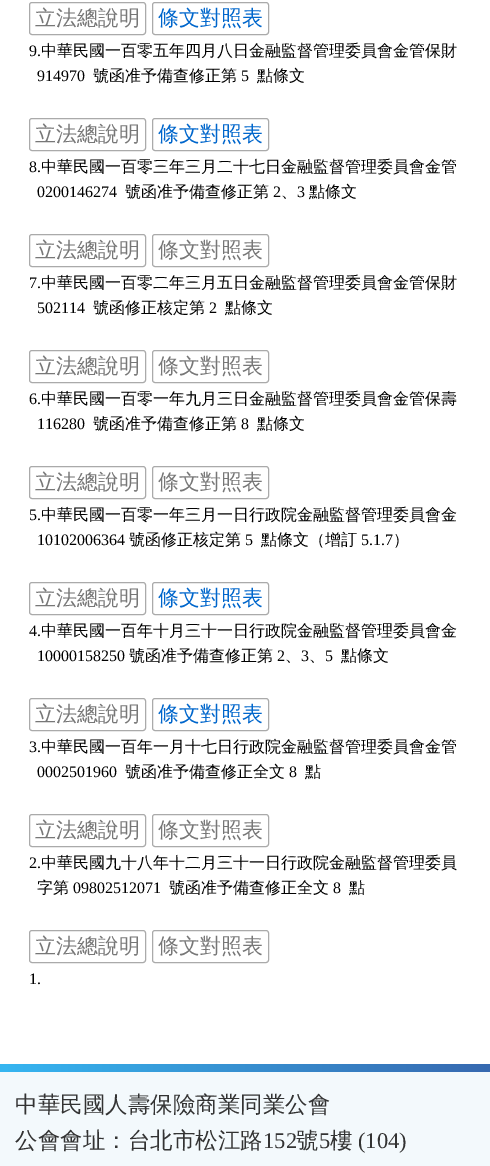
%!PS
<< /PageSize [490 1166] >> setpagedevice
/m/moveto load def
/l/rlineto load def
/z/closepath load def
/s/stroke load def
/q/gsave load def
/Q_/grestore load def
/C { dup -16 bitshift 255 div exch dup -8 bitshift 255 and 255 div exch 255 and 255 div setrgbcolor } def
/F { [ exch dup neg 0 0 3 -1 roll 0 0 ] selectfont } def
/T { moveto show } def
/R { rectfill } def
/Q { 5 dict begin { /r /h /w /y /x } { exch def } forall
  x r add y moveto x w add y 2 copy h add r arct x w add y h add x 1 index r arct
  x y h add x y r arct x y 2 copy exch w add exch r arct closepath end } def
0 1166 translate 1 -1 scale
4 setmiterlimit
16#FFFFFF C
0 0 490 1166 R
16#AAAAAA C
29.5 2.5 116 32 2.5 Q s
/WenQuanYiZenHei-Medium 21 F
16#777777 C
(立法總說明) 35 25 T
16#AAAAAA C
152.5 2.5 116 32 2.5 Q s
16#0066CC C
(條文對照表) 158 25 T
/LiberationSerif-Regular 16 F
16#000000 C
(9.) 29 56 T
/WenQuanYiZenHei-Medium 16 F
(中華民國一百零五年四月八日金融監督管理委員會金管保財) 41 56 T
/LiberationSerif-Regular 16 F
(914970) 37 81 T
/WenQuanYiZenHei-Medium 16 F
(號函准予備查修正第) 93 81 T
/LiberationSerif-Regular 16 F
(5) 241 81 T
/WenQuanYiZenHei-Medium 16 F
(點條文) 257 81 T
16#AAAAAA C
29.5 118.5 116 32 2.5 Q s
/WenQuanYiZenHei-Medium 21 F
16#777777 C
(立法總說明) 35 141 T
16#AAAAAA C
152.5 118.5 116 32 2.5 Q s
16#0066CC C
(條文對照表) 158 141 T
/LiberationSerif-Regular 16 F
16#000000 C
(8.) 29 172 T
/WenQuanYiZenHei-Medium 16 F
(中華民國一百零三年三月二十七日金融監督管理委員會金管) 41 172 T
/LiberationSerif-Regular 16 F
(0200146274) 37 197 T
/WenQuanYiZenHei-Medium 16 F
(號函准予備查修正第) 125 197 T
/LiberationSerif-Regular 16 F
(2) 273 197 T
/WenQuanYiZenHei-Medium 16 F
(、) 281 197 T
/LiberationSerif-Regular 16 F
(3) 297 197 T
/WenQuanYiZenHei-Medium 16 F
(點條文) 309 197 T
16#AAAAAA C
29.5 234.5 116 32 2.5 Q s
/WenQuanYiZenHei-Medium 21 F
16#777777 C
(立法總說明) 35 257 T
16#AAAAAA C
152.5 234.5 116 32 2.5 Q s
16#777777 C
(條文對照表) 158 257 T
/LiberationSerif-Regular 16 F
16#000000 C
(7.) 29 288 T
/WenQuanYiZenHei-Medium 16 F
(中華民國一百零二年三月五日金融監督管理委員會金管保財) 41 288 T
/LiberationSerif-Regular 16 F
(502114) 37 313 T
/WenQuanYiZenHei-Medium 16 F
(號函修正核定第) 93 313 T
/LiberationSerif-Regular 16 F
(2) 209 313 T
/WenQuanYiZenHei-Medium 16 F
(點條文) 225 313 T
16#AAAAAA C
29.5 350.5 116 32 2.5 Q s
/WenQuanYiZenHei-Medium 21 F
16#777777 C
(立法總說明) 35 373 T
16#AAAAAA C
152.5 350.5 116 32 2.5 Q s
16#777777 C
(條文對照表) 158 373 T
/LiberationSerif-Regular 16 F
16#000000 C
(6.) 29 404 T
/WenQuanYiZenHei-Medium 16 F
(中華民國一百零一年九月三日金融監督管理委員會金管保壽) 41 404 T
/LiberationSerif-Regular 16 F
(116280) 37 429 T
/WenQuanYiZenHei-Medium 16 F
(號函准予備查修正第) 93 429 T
/LiberationSerif-Regular 16 F
(8) 241 429 T
/WenQuanYiZenHei-Medium 16 F
(點條文) 257 429 T
16#AAAAAA C
29.5 466.5 116 32 2.5 Q s
/WenQuanYiZenHei-Medium 21 F
16#777777 C
(立法總說明) 35 489 T
16#AAAAAA C
152.5 466.5 116 32 2.5 Q s
16#777777 C
(條文對照表) 158 489 T
/LiberationSerif-Regular 16 F
16#000000 C
(5.) 29 520 T
/WenQuanYiZenHei-Medium 16 F
(中華民國一百零一年三月一日行政院金融監督管理委員會金) 41 520 T
/LiberationSerif-Regular 16 F
(10102006364) 37 545 T
/WenQuanYiZenHei-Medium 16 F
(號函修正核定第) 129 545 T
/LiberationSerif-Regular 16 F
(5) 245 545 T
/WenQuanYiZenHei-Medium 16 F
(點條文（增訂) 261 545 T
/LiberationSerif-Regular 16 F
(5.1.7) 361 545 T
/WenQuanYiZenHei-Medium 16 F
(）) 393 545 T
16#AAAAAA C
29.5 582.5 116 32 2.5 Q s
/WenQuanYiZenHei-Medium 21 F
16#777777 C
(立法總說明) 35 605 T
16#AAAAAA C
152.5 582.5 116 32 2.5 Q s
16#0066CC C
(條文對照表) 158 605 T
/LiberationSerif-Regular 16 F
16#000000 C
(4.) 29 636 T
/WenQuanYiZenHei-Medium 16 F
(中華民國一百年十月三十一日行政院金融監督管理委員會金) 41 636 T
/LiberationSerif-Regular 16 F
(10000158250) 37 661 T
/WenQuanYiZenHei-Medium 16 F
(號函准予備查修正第) 129 661 T
/LiberationSerif-Regular 16 F
(2) 277 661 T
/WenQuanYiZenHei-Medium 16 F
(、) 285 661 T
/LiberationSerif-Regular 16 F
(3) 301 661 T
/WenQuanYiZenHei-Medium 16 F
(、) 309 661 T
/LiberationSerif-Regular 16 F
(5) 325 661 T
/WenQuanYiZenHei-Medium 16 F
(點條文) 341 661 T
16#AAAAAA C
29.5 698.5 116 32 2.5 Q s
/WenQuanYiZenHei-Medium 21 F
16#777777 C
(立法總說明) 35 721 T
16#AAAAAA C
152.5 698.5 116 32 2.5 Q s
16#0066CC C
(條文對照表) 158 721 T
/LiberationSerif-Regular 16 F
16#000000 C
(3.) 29 752 T
/WenQuanYiZenHei-Medium 16 F
(中華民國一百年一月十七日行政院金融監督管理委員會金管) 41 752 T
/LiberationSerif-Regular 16 F
(0002501960) 37 777 T
/WenQuanYiZenHei-Medium 16 F
(號函准予備查修正全文) 125 777 T
/LiberationSerif-Regular 16 F
(8) 289 777 T
/WenQuanYiZenHei-Medium 16 F
(點) 305 777 T
16#AAAAAA C
29.5 814.5 116 32 2.5 Q s
/WenQuanYiZenHei-Medium 21 F
16#777777 C
(立法總說明) 35 837 T
16#AAAAAA C
152.5 814.5 116 32 2.5 Q s
16#777777 C
(條文對照表) 158 837 T
/LiberationSerif-Regular 16 F
16#000000 C
(2.) 29 868 T
/WenQuanYiZenHei-Medium 16 F
(中華民國九十八年十二月三十一日行政院金融監督管理委員) 41 868 T
(字第) 37 893 T
/LiberationSerif-Regular 16 F
(09802512071) 73 893 T
/WenQuanYiZenHei-Medium 16 F
(號函准予備查修正全文) 169 893 T
/LiberationSerif-Regular 16 F
(8) 333 893 T
/WenQuanYiZenHei-Medium 16 F
(點) 349 893 T
16#AAAAAA C
29.5 930.5 116 32 2.5 Q s
/WenQuanYiZenHei-Medium 21 F
16#777777 C
(立法總說明) 35 953 T
16#AAAAAA C
152.5 930.5 116 32 2.5 Q s
16#777777 C
(條文對照表) 158 953 T
/LiberationSerif-Regular 16 F
16#000000 C
(1.) 29 984 T
16#F3F9FC C
0 1072 490 94 R
q 0 1064 m 490 0 l 0 8 l -490 0 l z clip newpath
<< /ShadingType 2 /ColorSpace /DeviceRGB /Coords [0 1068 490 1068] /Extend [true true] /Function << /FunctionType 3 /Domain [0 1] /Functions [<< /FunctionType 2 /Domain [0 1] /C0 [.208 .71 .941] /C1 [.208 .71 .941] /N 1 >> << /FunctionType 2 /Domain [0 1] /C0 [.208 .71 .941] /C1 [.216 .412 .69] /N 1 >>] /Bounds [.01] /Encode [0 1 0 1] >> >> shfill Q_
/WenQuanYiZenHei-Medium 22.5 F
16#333333 C
(中華民國人壽保險商業同業公會) 15 1112 T
(公會會址：台北市松江路) 15 1148 T
/LiberationSerif-Regular 22.5 F
(152) 263 1148 T
/WenQuanYiZenHei-Medium 22.5 F
(號) 296 1148 T
/LiberationSerif-Regular 22.5 F
(5) 319 1148 T
/WenQuanYiZenHei-Medium 22.5 F
(樓) 330 1148 T
/LiberationSerif-Regular 22.5 F
(\(104\)) 358 1148 T
showpage
